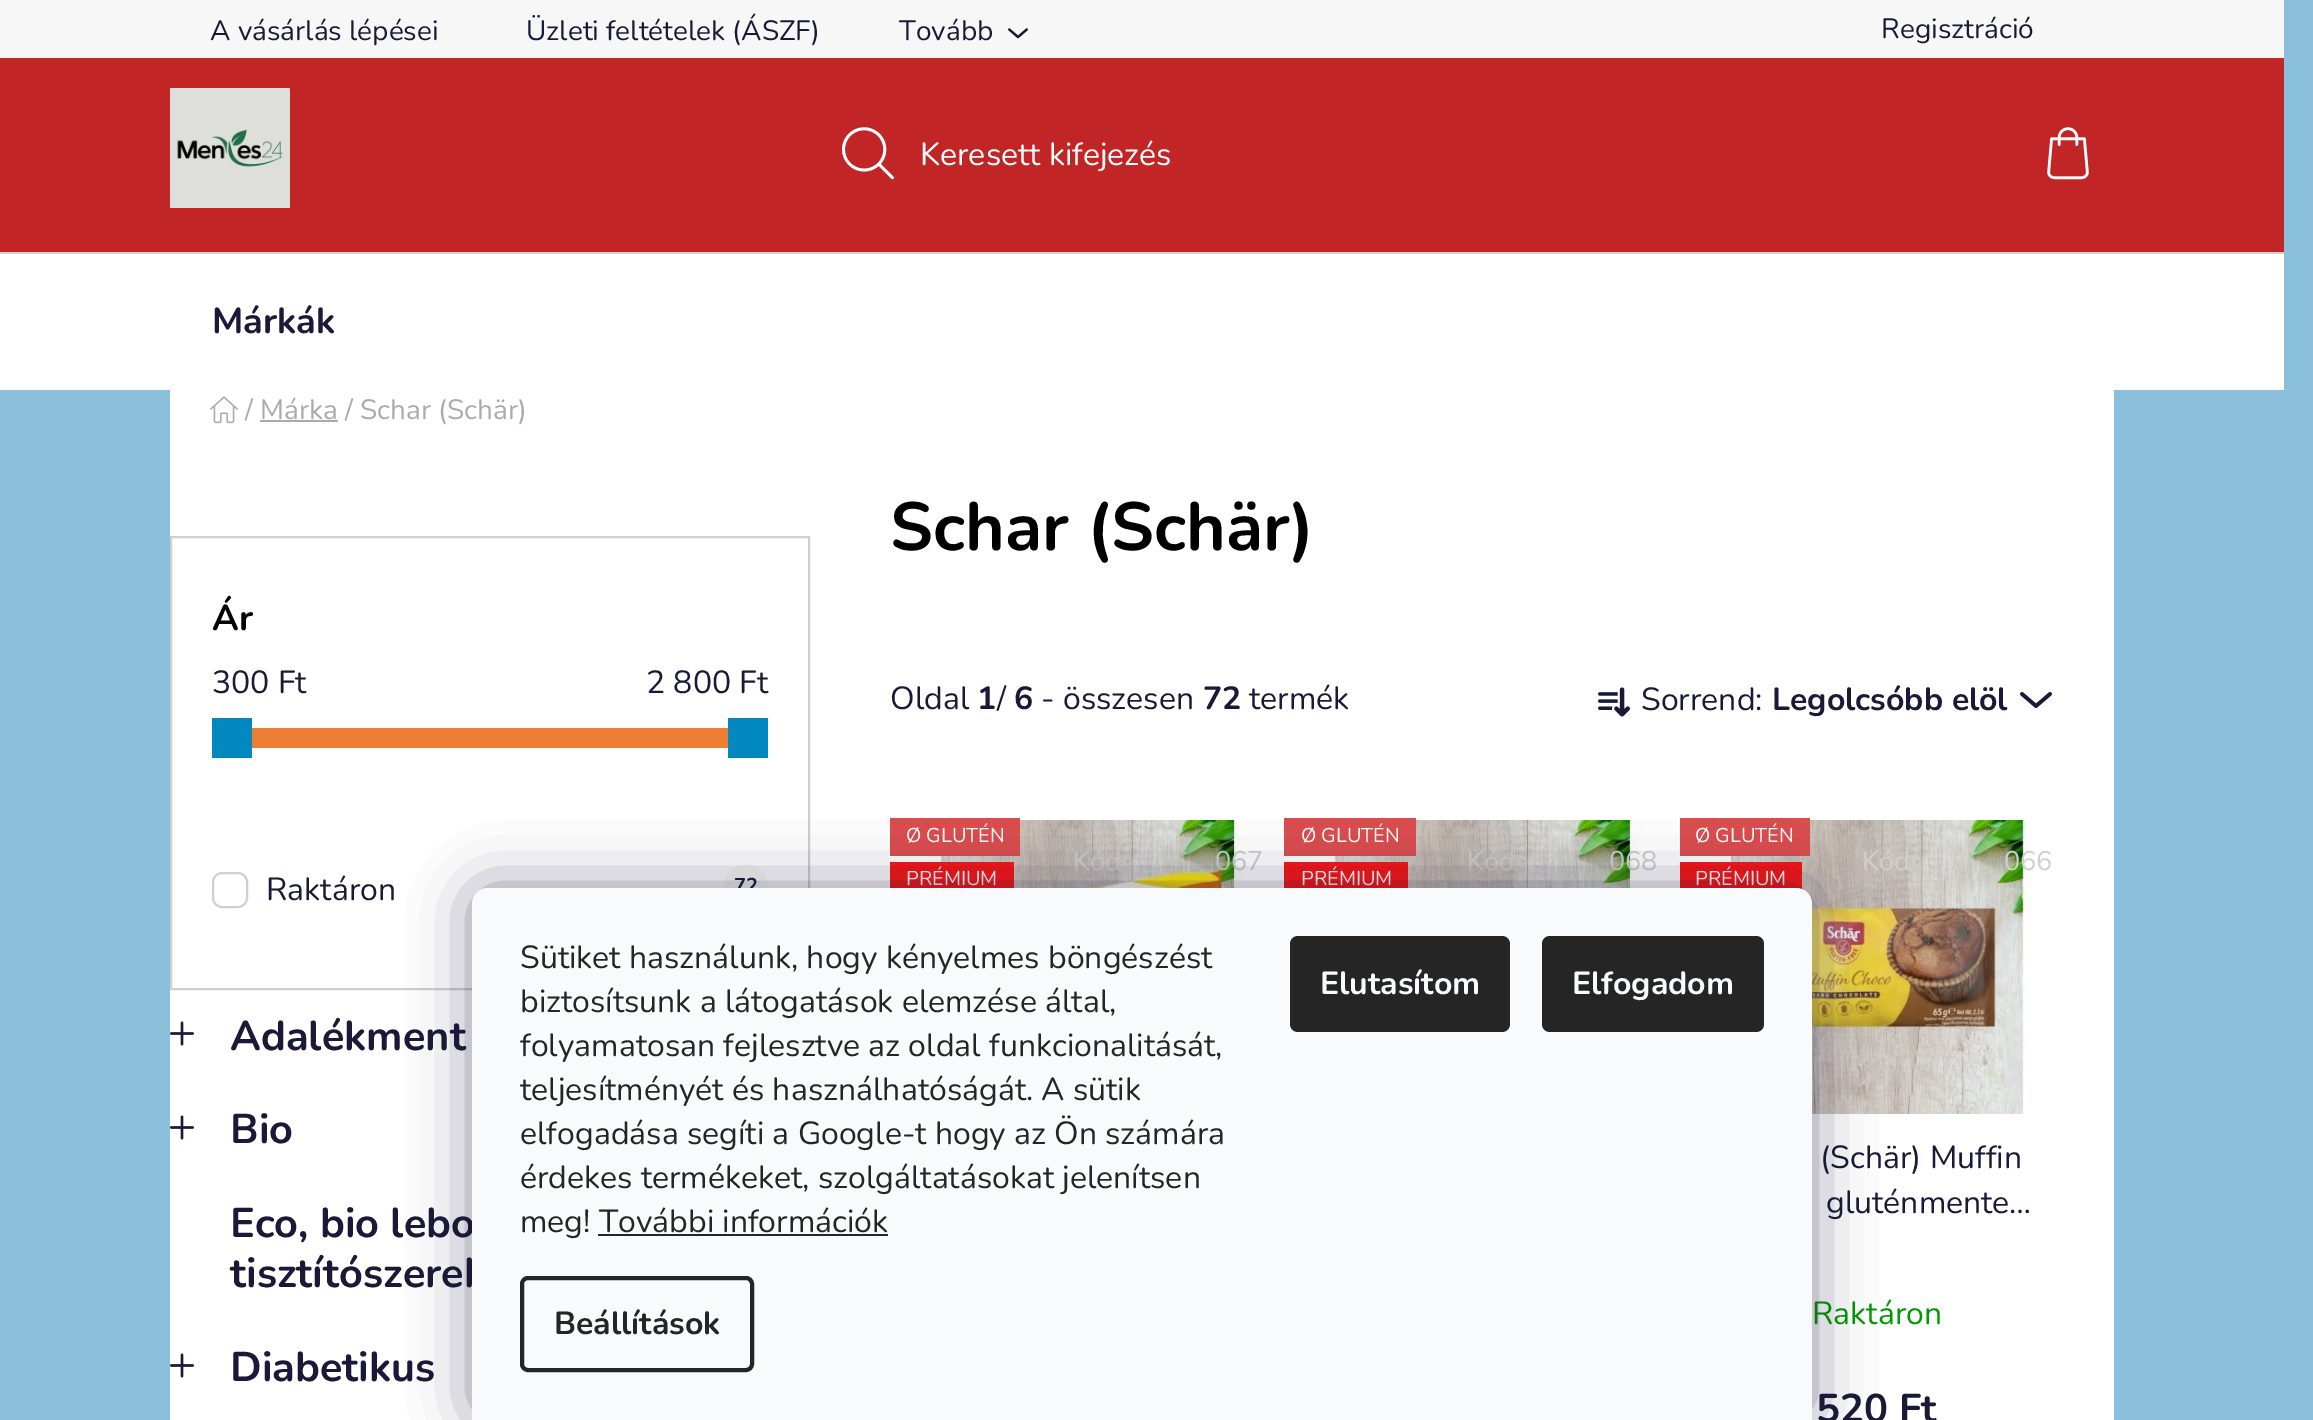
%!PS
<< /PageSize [2313 1420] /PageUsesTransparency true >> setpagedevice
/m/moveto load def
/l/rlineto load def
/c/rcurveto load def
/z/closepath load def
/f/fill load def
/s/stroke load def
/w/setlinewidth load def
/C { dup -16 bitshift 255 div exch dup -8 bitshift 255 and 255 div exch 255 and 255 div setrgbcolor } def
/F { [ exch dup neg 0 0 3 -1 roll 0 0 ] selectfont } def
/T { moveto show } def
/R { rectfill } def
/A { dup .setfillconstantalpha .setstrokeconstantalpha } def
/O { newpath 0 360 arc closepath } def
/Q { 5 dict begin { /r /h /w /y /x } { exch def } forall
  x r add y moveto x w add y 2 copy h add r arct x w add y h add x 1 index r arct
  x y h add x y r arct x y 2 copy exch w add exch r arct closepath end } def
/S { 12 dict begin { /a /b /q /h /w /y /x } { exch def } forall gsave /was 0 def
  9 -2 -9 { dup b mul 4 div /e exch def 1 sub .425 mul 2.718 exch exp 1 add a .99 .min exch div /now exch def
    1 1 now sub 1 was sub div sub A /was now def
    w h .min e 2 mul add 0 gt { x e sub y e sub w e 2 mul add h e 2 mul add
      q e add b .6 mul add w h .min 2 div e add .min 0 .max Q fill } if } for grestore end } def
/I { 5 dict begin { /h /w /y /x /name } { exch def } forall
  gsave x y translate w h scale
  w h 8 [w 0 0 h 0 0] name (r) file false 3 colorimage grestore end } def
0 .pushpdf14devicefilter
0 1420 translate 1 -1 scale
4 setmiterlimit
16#8AC0DB C
0 0 2313 1420 R
16#F7F7F7 C
0 0 2284 58 R
/Nunito-Regular 28 F
16#1A1937 C
(A vásárlás lépései) 210 40 T
(Üzleti feltételek \(ÁSZF\)) 526 40 T
(Tovább) 899 40 T
(1.rgb) 1008 28 20 11 I
(Regisztráció) 1881 38 T
16#C12525 C
0 58 2284 194 R
(2.rgb) 170 88 120 120 I
(3.rgb) 842 127 52 53 I
/Nunito-Regular 32 F
16#FFFFFF C
(Keresett kifejezés) 920 165 T
(4.rgb) 2047 127 42 53 I
0 254 2284 136 R
16#CFCFCF C
0 252 2284 2 R
/Nunito-Bold 36 F
16#1A1937 C
(Márkák) 212 333 T
16#FFFFFF C
170 390 1944 1030 R
(5.rgb) 210 396 28 28 I
/Nunito-Regular 28 F
16#AAAAAA C
(/ Márka / Schar \(Schär\)) 245 419 T
260 420 78 2 R
16#CFCFCF C
2 w
171 537 638 452 rectstroke
/Nunito-Bold 36 F
16#000000 C
(Ár) 212 630 T
/Nunito-Regular 32 F
16#1A1937 C
(300 Ft) 212 693 T
(2 800 Ft) 646 693 T
16#0088BF C
212 718 40 40 R
16#ED7F35 C
252 728 476 20 R
16#0088BF C
728 718 40 40 R
16#CFCFCF C
213 873 34 34 9 Q s
16#1A1937 C
(Raktáron) 266 900 T
16#F7F7F7 C
746 886 22 O f
/Nunito-Bold 20 F
16#1A1937 C
(72) 734 892 T
(6.rgb) 170 1021 24 25 I
/Nunito-Bold 41.5 F
(Adalékment) 230 1050 T
(6.rgb) 170 1115 24 25 I
(Bio) 230 1143 T
(Eco, bio lebo) 230 1237 T
(tisztítószerek) 230 1287 T
(6.rgb) 170 1353 24 25 I
(Diabetikus) 230 1381 T
/Nunito-Bold 68 F
16#000000 C
(Schar \(Schär\)) 890 550 T
/Nunito-Regular 32 F
16#1A1937 C
(Oldal) 890 709 T
/Nunito-Bold 32 F
(1) 977 709 T
/Nunito-Regular 32 F
(/) 997 709 T
/Nunito-Bold 32 F
(6) 1014 709 T
/Nunito-Regular 32 F
(- összesen) 1041 709 T
/Nunito-Bold 32 F
(72) 1203 709 T
/Nunito-Regular 32 F
(termék) 1249 709 T
(7.rgb) 1598 687 32 30 I
(Sorrend:) 1641 710 T
/Nunito-Bold 32 F
(Legolcsóbb elöl) 1772 710 T
(8.rgb) 2020 692 32 16 I
(9.rgb) 939 820 307 68 I
16#DB4D4D C
890 818 130 38 R
/Nunito-Regular 20 F
16#FFFFFF C
(Ø GLUTÉN) 906 842 T
16#F81616 C
890 862 124 26 R
16#FFFFFF C
(PRÉMIUM) 906 885 T
/Nunito-Regular 27 F
16#CFCFCF C
(Kód) 1073 870 T
(067) 1215 870 T
(10.rgb) 1331 820 311 68 I
16#DB4D4D C
1284 818 132 38 R
/Nunito-Regular 20 F
16#FFFFFF C
(Ø GLUTÉN) 1301 842 T
16#F81616 C
1284 862 124 26 R
16#FFFFFF C
(PRÉMIUM) 1301 885 T
/Nunito-Regular 27 F
16#CFCFCF C
(Kód) 1467 870 T
(068) 1609 870 T
(11.rgb) 1726 820 307 294 I
16#DB4D4D C
1680 818 130 38 R
/Nunito-Regular 20 F
16#FFFFFF C
(Ø GLUTÉN) 1695 842 T
16#F81616 C
1680 862 122 28 R
16#FFFFFF C
(PRÉMIUM) 1695 885 T
/Nunito-Regular 27 F
16#CFCFCF C
(Kód) 1862 870 T
(066) 2004 870 T
/Nunito-Regular 32 F
16#1A1937 C
(\(Schär\) Muffin) 1820 1168 T
(gluténmente…) 1826 1213 T
16#009901 C
(Raktáron) 1812 1324 T
/Nunito-Bold 40 F
16#1A1937 C
(520 Ft) 1816 1422 T
16#1B1939 C
472 888 1340 532 16 30 .5 S
16#F8FAFB C
488 888 m 1308 0 l 9 0 16 7 16 16 c 0 516 l -1340 0 l 0 -516 l 0 -9 7 -16 16 -16 c z f
/Nunito-Regular 32 F
16#252525 C
(Sütiket használunk, hogy kényelmes böngészést) 520 968 T
(biztosítsunk a látogatások elemzése által,) 520 1012 T
(folyamatosan fejlesztve az oldal funkcionalitását,) 520 1056 T
(teljesítményét és használhatóságát. A sütik) 520 1100 T
(elfogadása segíti a Google-t hogy az Ön számára) 520 1144 T
(érdekes termékeket, szolgáltatásokat jelenítsen) 520 1188 T
(meg! További információk) 520 1232 T
598 1234 290 2 R
4 w
522 1278 230 92 6 Q s
/Nunito-Bold 32 F
(Beállítások) 554 1334 T
1290 936 220 96 8 Q f
16#F8FAFB C
(Elutasítom) 1320 994 T
16#252525 C
1542 936 222 96 8 Q f
16#F8FAFB C
(Elfogadom) 1572 994 T
.poppdf14devicefilter showpage
